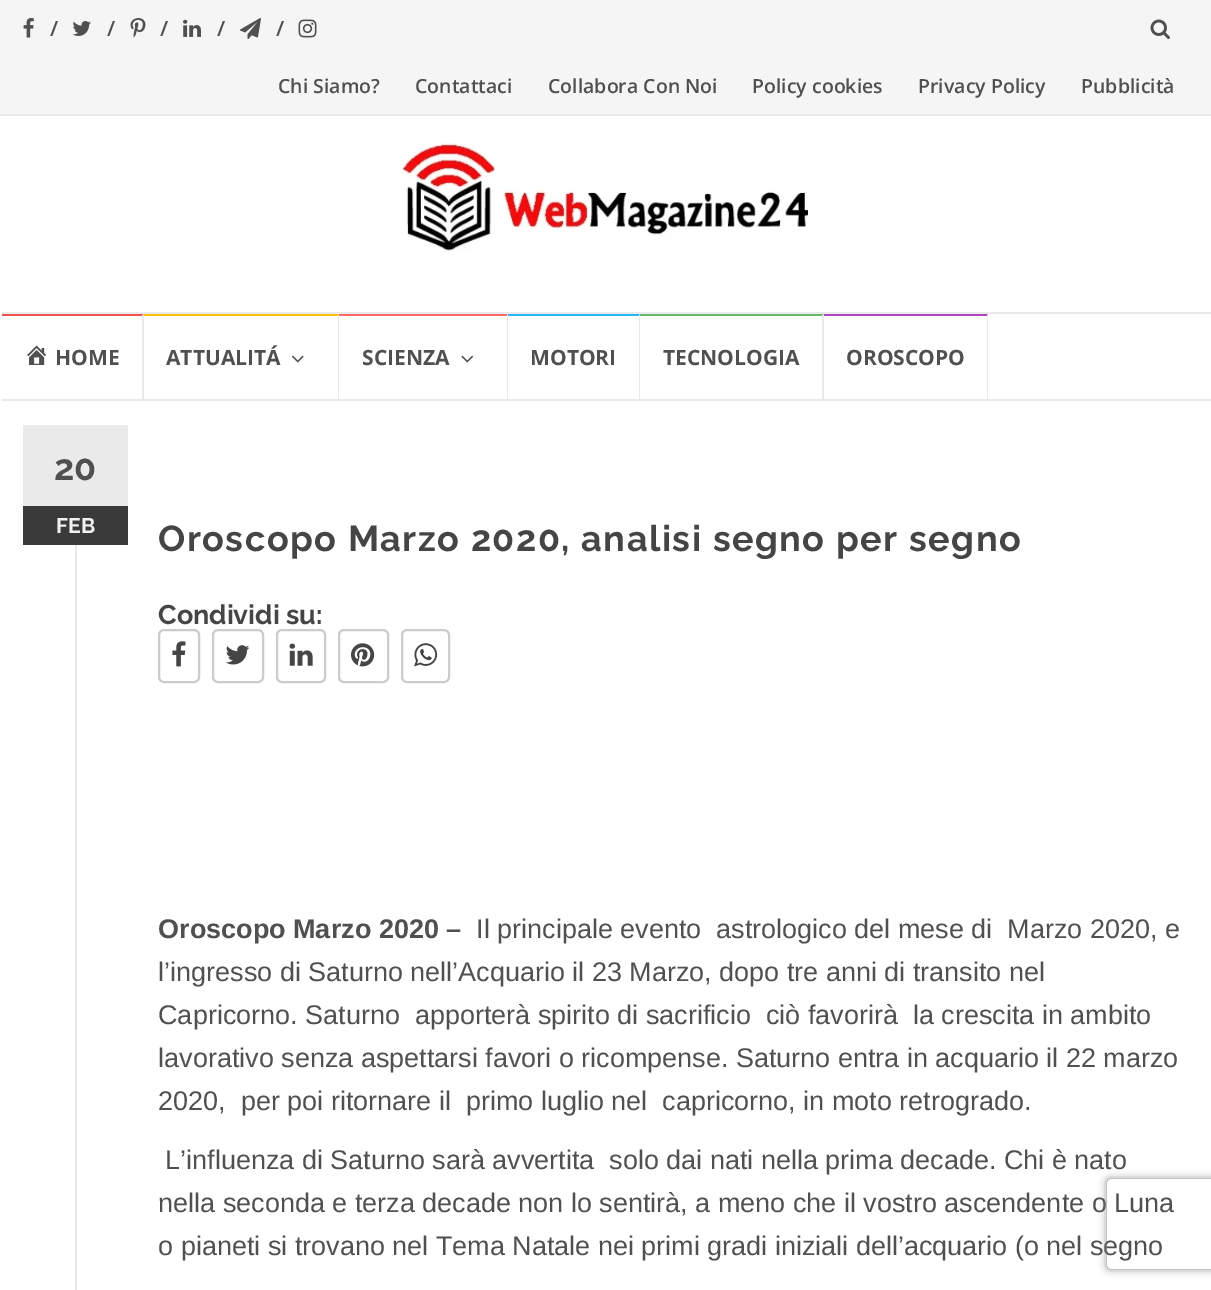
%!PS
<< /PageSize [1211 1290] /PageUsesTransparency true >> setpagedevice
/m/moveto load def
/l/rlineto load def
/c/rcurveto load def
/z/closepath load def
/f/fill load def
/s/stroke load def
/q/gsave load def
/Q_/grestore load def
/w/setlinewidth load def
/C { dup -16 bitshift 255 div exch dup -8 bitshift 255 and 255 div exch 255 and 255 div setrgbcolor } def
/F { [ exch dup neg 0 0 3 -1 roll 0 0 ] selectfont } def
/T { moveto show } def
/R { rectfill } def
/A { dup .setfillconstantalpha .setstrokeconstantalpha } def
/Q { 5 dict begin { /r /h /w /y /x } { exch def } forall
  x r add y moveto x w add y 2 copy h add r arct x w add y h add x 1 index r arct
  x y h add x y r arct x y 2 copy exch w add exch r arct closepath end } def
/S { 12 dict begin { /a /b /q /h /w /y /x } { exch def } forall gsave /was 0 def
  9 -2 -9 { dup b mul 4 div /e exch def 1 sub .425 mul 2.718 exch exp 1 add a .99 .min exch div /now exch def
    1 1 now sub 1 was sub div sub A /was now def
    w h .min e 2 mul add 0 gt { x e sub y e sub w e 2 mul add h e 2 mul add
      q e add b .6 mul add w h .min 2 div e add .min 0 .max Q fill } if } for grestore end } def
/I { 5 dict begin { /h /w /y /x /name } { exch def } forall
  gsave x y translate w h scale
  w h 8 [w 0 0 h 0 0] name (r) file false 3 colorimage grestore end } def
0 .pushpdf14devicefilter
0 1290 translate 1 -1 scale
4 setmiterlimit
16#FFFFFF C
0 0 1211 1290 R
16#F5F5F5 C
0 0 1211 114 R
16#EAEAEA C
0 114 1211 2 R
(1.rgb) 23 18 11 20 I
/OpenSans-SemiBold 21 F
16#505050 C
(/) 50 36 T
(2.rgb) 72 21 19 15 I
(/) 107 36 T
(3.rgb) 130 18 16 20 I
(/) 160 36 T
(4.rgb) 183 19 18 18 I
(/) 217 36 T
(5.rgb) 240 18 21 21 I
(/) 276 36 T
(6.rgb) 298 19 19 19 I
(7.rgb) 1150 19 20 20 I
/OpenSans-SemiBold 19.5 F
(Chi Siamo?) 278 93 T
(Contattaci) 415 93 T
(Collabora Con Noi) 548 93 T
(Policy cookies) 752 93 T
(Privacy Policy) 918 93 T
(Pubblicità) 1081 93 T
(8.rgb) 400 143 408 110 I
16#EAEAEA C
2 312 1209 2 R
2 399 1209 2 R
16#EF5350 C
2 314 m 142 0 l -2 2 l -140 0 l z f
16#EAEAEA C
144 314 m 0 85 l -2 0 l 0 -83 l z f
(9.rgb) 27 345 19 20 I
/OpenSans-Bold 21 F
16#505050 C
(HOME) 55 365 T
16#FFC107 C
144 314 m 195 0 l -1 2 l -194 0 l z f
16#EAEAEA C
339 314 m 0 85 l -1 0 l 0 -83 l z f
16#505050 C
(ATTUALITÁ) 166 365 T
(10.rgb) 291 355 13 8 I
16#FF6B6B C
339 314 m 169 0 l -1 2 l -168 0 l z f
16#EAEAEA C
508 314 m 0 85 l -1 0 l 0 -83 l z f
16#505050 C
(SCIENZA) 362 365 T
(11.rgb) 461 355 13 8 I
16#29B6F6 C
508 314 m 132 0 l -1 2 l -131 0 l z f
16#EAEAEA C
640 314 m 0 85 l -1 0 l 0 -83 l z f
16#505050 C
(MOTORI) 530 365 T
16#66BB6A C
640 314 m 184 0 l -2 2 l -182 0 l z f
16#EAEAEA C
824 314 m 0 85 l -2 0 l 0 -83 l z f
16#505050 C
(TECNOLOGIA) 663 365 T
16#AB47BC C
824 314 m 164 0 l -1 2 l -163 0 l z f
16#EAEAEA C
988 314 m 0 85 l -1 0 l 0 -83 l z f
16#505050 C
(OROSCOPO) 846 365 T
16#EAEAEA C
23 425 105 81 R
/Raleway-Bold 36 F
16#505050 C
(20) 54 480 T
16#3A3A3A C
23 506 105 39 R
/Raleway-Bold 21 F
16#F1F1F1 C
(FEB) 56 533 T
/Raleway-Bold 36 F
16#454545 C
158 551 m 1.5 0 (Oroscopo Marzo 2020, analisi segno per segno) ashow
16#EAEAEA C
75 545 2 745 R
/Raleway-Bold 27 F
16#454545 C
(Condividi su:) 158 624 T
16#CCCCCC C
2 w
159 630 40 52 5 Q s
(12.rgb) 172 641 14 26 I
213 630 50 52 5 Q s
(13.rgb) 225 645 25 20 I
277 630 48 52 5 Q s
(14.rgb) 289 643 24 23 I
339 630 49 52 5 Q s
(15.rgb) 351 643 24 24 I
402 630 47 52 5 Q s
(16.rgb) 414 643 24 24 I
/LiberationSans-Bold 27 F
16#505050 C
(Oroscopo Marzo 2020 –) 158 938 T
/LiberationSans-Regular 27 F
(Il principale evento  astrologico del mese di  Marzo 2020, e) 476 938 T
(l’ingresso di Saturno nell’Acquario il 23 Marzo, dopo tre anni di transito nel) 158 981 T
(Capricorno. Saturno  apporterà spirito di sacrificio  ciò favorirà  la crescita in ambito) 158 1024 T
(lavorativo senza aspettarsi favori o ricompense. Saturno entra in acquario il 22 marzo) 158 1067 T
(2020,  per poi ritornare il  primo luglio nel  capricorno, in moto retrogrado.) 158 1110 T
(L’influenza di Saturno sarà avvertita  solo dai nati nella prima decade. Chi è nato) 165 1169 T
(nella seconda e terza decade non lo sentirà, a meno che il vostro ascendente o Luna) 158 1212 T
(o pianeti si trovano nel Tema Natale nei primi gradi iniziali dell’acquario \(o nel segno) 158 1255 T
q
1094 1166 m 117 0 l 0 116 l -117 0 l z 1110 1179 m 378 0 l 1.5 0 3 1.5 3 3 c 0 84 l 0 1.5 -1.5 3 -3 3 c -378 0 l -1.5 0 -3 -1.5 -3 -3 c 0 -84 l 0 -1.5 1.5 -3 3 -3 c z eoclip newpath
16#808080 C
1107 1179 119 90 3 4 1 S
Q_
.poppdf14devicefilter showpage
